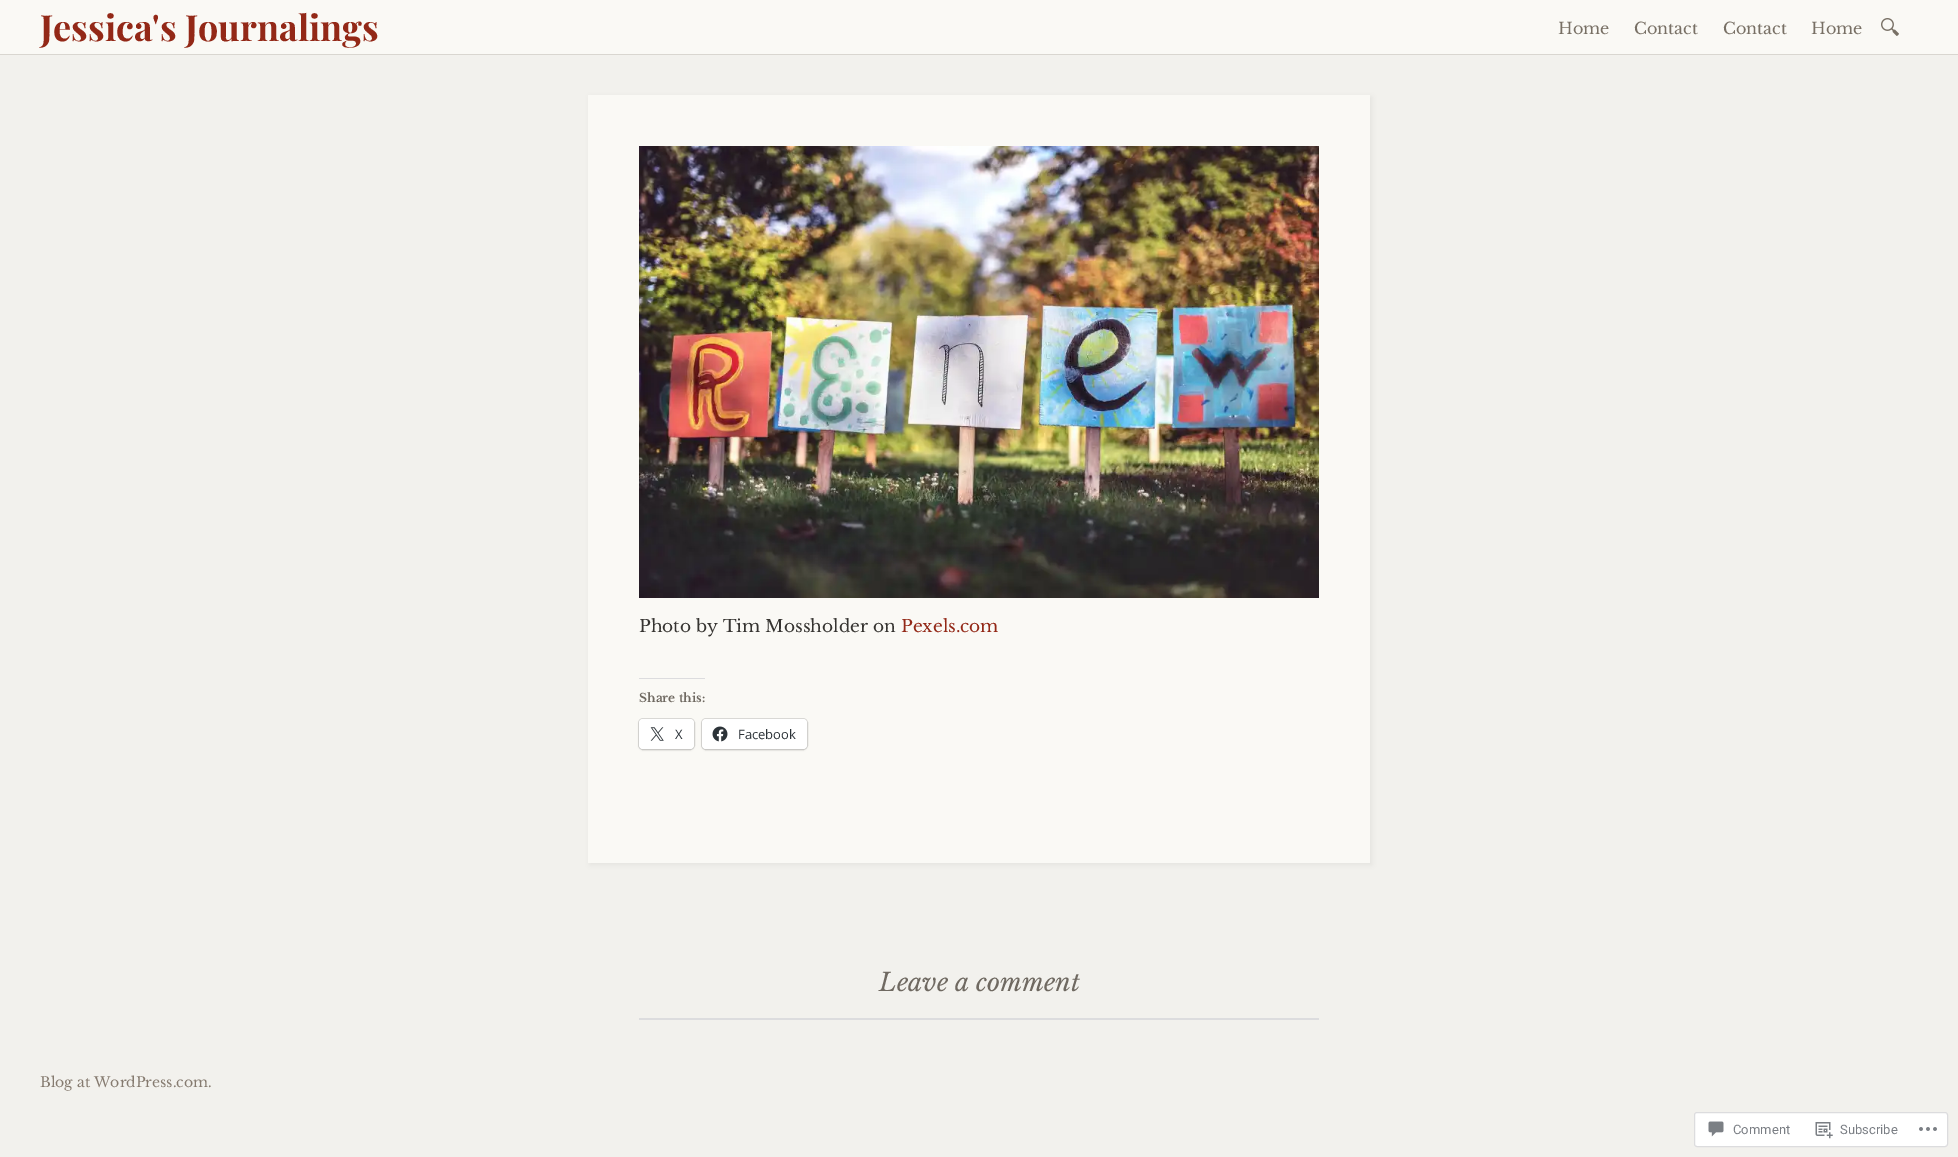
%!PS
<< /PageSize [1958 1157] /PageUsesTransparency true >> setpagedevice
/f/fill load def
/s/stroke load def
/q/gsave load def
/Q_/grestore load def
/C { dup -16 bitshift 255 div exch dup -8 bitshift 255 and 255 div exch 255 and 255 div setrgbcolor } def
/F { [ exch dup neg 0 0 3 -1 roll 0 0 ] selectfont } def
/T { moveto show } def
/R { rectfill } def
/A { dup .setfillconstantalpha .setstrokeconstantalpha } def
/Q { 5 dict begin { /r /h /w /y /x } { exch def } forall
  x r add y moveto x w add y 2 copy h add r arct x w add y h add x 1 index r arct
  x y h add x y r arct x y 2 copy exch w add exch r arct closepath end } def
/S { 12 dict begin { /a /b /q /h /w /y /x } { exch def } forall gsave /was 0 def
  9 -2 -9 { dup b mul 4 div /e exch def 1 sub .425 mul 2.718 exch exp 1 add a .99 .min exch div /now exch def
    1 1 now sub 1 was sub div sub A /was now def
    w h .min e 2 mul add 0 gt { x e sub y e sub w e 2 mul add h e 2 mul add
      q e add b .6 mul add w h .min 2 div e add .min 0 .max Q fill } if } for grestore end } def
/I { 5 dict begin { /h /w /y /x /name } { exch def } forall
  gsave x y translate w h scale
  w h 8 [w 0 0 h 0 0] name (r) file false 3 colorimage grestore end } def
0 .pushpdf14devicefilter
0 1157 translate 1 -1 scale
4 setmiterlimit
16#F2F1ED C
0 0 1958 1157 R
16#FAF9F5 C
0 0 1958 54 R
16#D9D6D0 C
0 54 1958 1 R
/PlayfairDisplay-Bold 36 F
16#932817 C
(Jessica's Journalings) 40 41 T
/LibreBaskerville-Regular 16 F
16#787065 C
(Home) 1558 34 T
(Contact) 1634 34 T
(Contact) 1723 34 T
(Home) 1811 34 T
(1.rgb) 1881 18 18 18 I
16#000000 C
590 97 782 768 0 3 .05 S
16#FAF9F5 C
588 95 782 768 R
(2.rgb) 639 146 680 452 I
/LibreBaskerville-Regular 17 F
16#363431 C
(Photo by Tim Mossholder on) 639 632 T
16#932817 C
(Pexels.com) 901 632 T
16#DCDCDE C
639 678 66 1 R
/LibreBaskerville-Bold 12 F
16#6F6961 C
(Share this:) 639 702 T
16#DCDBD8 C
638.5 718.5 56 31 4.5 Q s
16#000000 C
639 720 55 30 4 1 .12 S
16#FFFFFF C
639 719 55 30 4 Q f
(3.rgb) 650 727 14 14 I
/OpenSans-Regular 13 F
16#2C3338 C
(X) 675 739 T
16#DCDBD8 C
701.5 718.5 106 31 4.5 Q s
16#000000 C
702 720 105 30 4 1 .12 S
16#FFFFFF C
702 719 105 30 4 Q f
(4.rgb) 712 726 16 16 I
16#2C3338 C
(Facebook) 738 739 T
/LibreBaskerville-Italic 25 F
16#6F6961 C
(Leave a comment) 879 991 T
16#DCDCDE C
639 1018 680 2 R
/LibreBaskerville-Regular 14 F
16#857A6F C
(Blog at WordPress.com.) 40 1087 T
16#FFFFFF C
1694.5 1112.5 253 34 2.5 Q q f Q_
16#DCDCDE C
s
(5.rgb) 1708 1121 16 16 I
/Roboto-Regular 13 F
16#7A7E84 C
(Comment) 1733 1134 T
(6.rgb) 1815 1122 18 17 I
(Subscribe) 1840 1134 T
(7.rgb) 1919 1127 18 4 I
.poppdf14devicefilter showpage
